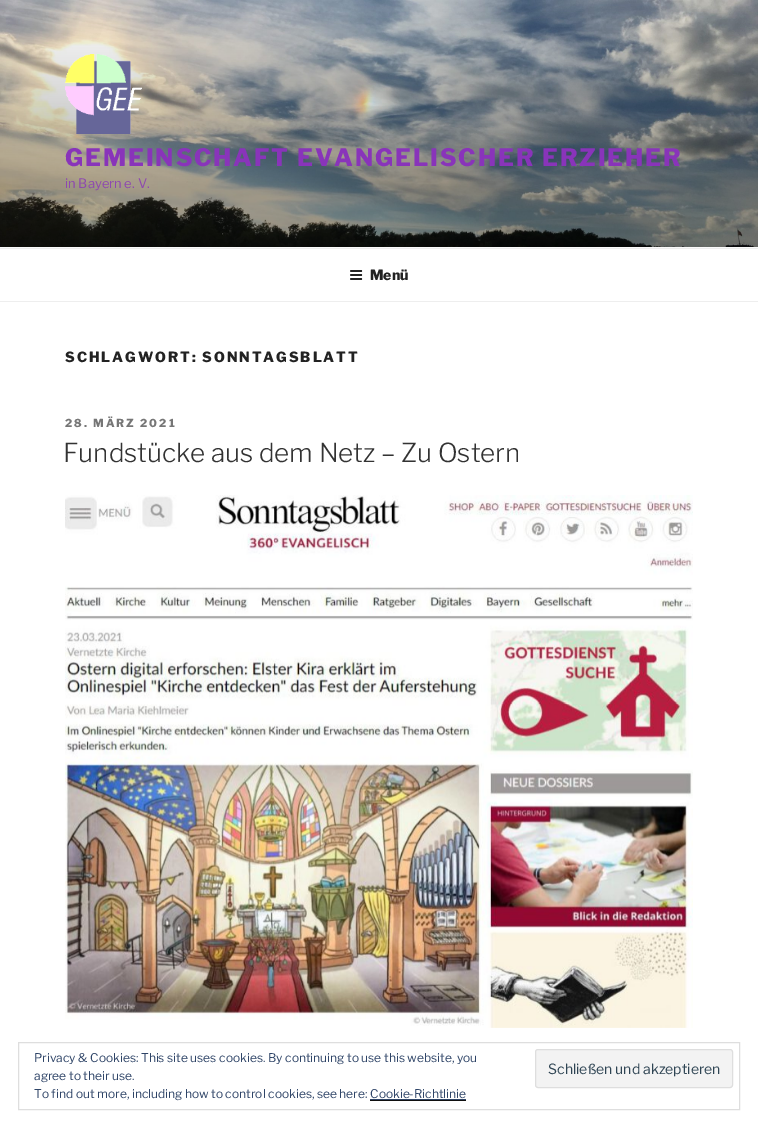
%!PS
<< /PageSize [758 1128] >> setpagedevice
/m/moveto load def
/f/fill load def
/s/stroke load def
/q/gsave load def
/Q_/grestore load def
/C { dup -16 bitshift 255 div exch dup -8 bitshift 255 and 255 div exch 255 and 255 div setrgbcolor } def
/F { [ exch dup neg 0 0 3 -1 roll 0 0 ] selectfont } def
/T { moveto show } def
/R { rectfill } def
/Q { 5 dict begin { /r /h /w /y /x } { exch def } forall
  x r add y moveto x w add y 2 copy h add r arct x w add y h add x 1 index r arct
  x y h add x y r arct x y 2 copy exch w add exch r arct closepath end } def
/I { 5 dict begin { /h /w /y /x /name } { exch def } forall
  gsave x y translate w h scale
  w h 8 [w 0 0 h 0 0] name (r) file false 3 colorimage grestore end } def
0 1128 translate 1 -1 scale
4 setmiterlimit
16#FFFFFF C
0 0 758 1128 R
16#FAFAFA C
0 247 758 1 R
(1.rgb) 0 0 758 247 I
(2.rgb) 65 54 77 80 I
/LibreFranklin-Thin 24 F
16#8934BA C
65 166 m 1.9 0 (GEMEINSCHAFT EVANGELISCHER ERZIEHER) ashow
/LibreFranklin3-Thin 13 F
16#8E48B0 C
(in Bayern e. V.) 65 188 T
16#EEEEEE C
0 248 758 1 R
0 301 758 1 R
(3.rgb) 350 270 13 10 I
/LibreFranklin-Thin 14 F
16#222222 C
(Menü) 370 280 T
65 362 m 1.95 0 (SCHLAGWORT: SONNTAGSBLATT) ashow
/LibreFranklin-Thin 11 F
16#767676 C
65 427 m 2 0 (28. MÄRZ 2021) ashow
/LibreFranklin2-Thin 26 F
16#333333 C
(Fundstücke aus dem Netz – Zu Ostern) 63 462 T
(4.rgb) 65 495 628 533 I
16#DEDEDE C
18.5 1042.5 721 67 rectstroke
/LibreFranklin3-Thin 12 F
16#2E4467 C
(Privacy & Cookies: This site uses cookies. By continuing to use this website, you) 34 1062 T
(agree to their use.) 34 1080 T
16#F3F3F3 C
535.5 1049.5 197 38 2.5 Q q f Q_
16#DEDEDE C
s
/LibreFranklin3-Thin 14 F
16#2E4453 C
(Schließen und akzeptieren) 548 1074 T
/LibreFranklin3-Thin 12 F
16#2E4467 C
(To find out more, including how to control cookies, see here: Cookie-Richtlinie) 34 1098 T
370 1099 96 1 R
16#0F0F0F C
370 1100 96 1 R
showpage
